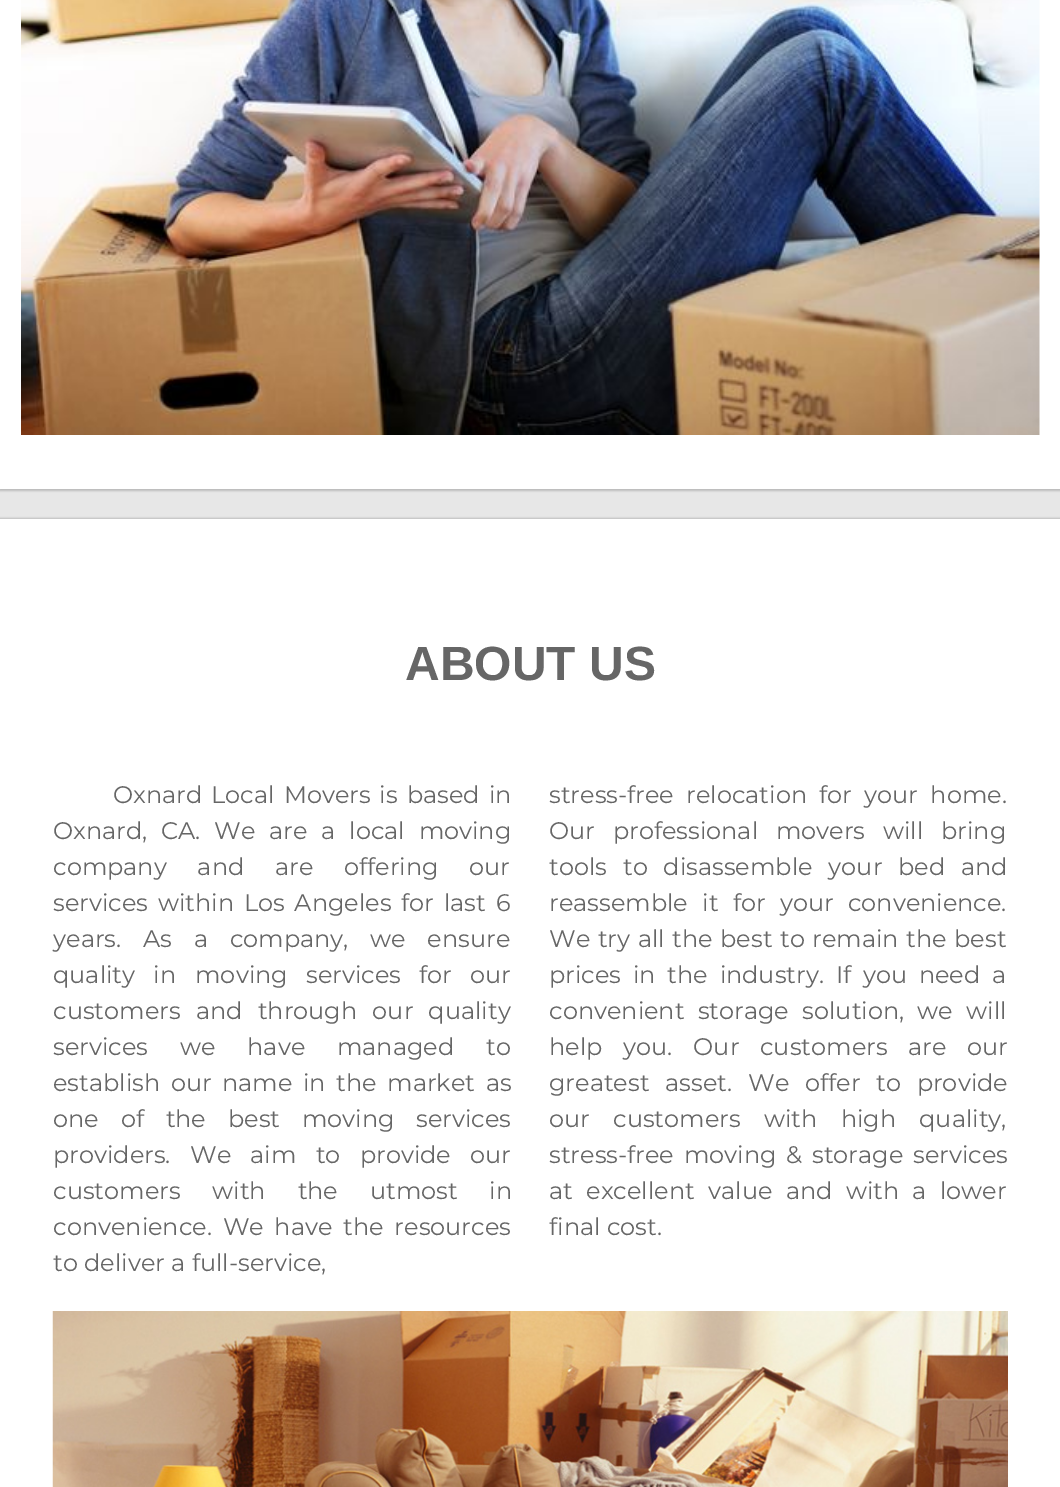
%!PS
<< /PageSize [1060 1487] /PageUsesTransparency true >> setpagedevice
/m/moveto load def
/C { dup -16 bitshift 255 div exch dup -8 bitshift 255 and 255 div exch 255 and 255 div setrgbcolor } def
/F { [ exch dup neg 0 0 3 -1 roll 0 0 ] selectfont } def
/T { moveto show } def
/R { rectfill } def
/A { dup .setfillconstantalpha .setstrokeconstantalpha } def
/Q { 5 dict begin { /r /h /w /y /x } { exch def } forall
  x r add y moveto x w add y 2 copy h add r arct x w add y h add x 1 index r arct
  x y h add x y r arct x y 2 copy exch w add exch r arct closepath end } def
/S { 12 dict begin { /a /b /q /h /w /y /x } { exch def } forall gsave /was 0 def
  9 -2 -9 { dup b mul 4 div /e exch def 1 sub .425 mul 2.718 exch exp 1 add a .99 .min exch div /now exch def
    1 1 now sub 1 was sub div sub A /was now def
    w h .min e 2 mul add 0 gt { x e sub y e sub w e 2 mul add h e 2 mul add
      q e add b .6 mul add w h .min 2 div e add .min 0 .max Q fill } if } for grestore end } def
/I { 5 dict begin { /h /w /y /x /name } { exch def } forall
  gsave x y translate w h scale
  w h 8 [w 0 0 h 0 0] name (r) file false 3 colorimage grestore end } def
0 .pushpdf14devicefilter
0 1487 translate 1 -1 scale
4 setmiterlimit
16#E7E7E7 C
0 0 1060 1487 R
16#BBBBBB C
-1 -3 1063 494 0 1 1 S
16#FFFFFF C
0 0 1060 489 R
(1.rgb) 21 0 1019 435 I
16#BBBBBB C
-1 518 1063 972 0 1 1 S
16#FFFFFF C
0 519 1060 968 R
/LiberationSans-Bold 48 F
16#666666 C
(ABOUT US) 405 680 T
/Montserrat-Regular 24 F
113 803 m 2.75 0 32 (Oxnard Local Movers is based in) widthshow
53 839 m 7.5 0 32 (Oxnard, CA. We are a local moving) widthshow
53 875 m 24.5 0 32 (company and are offering our) widthshow
53 911 m 3.5 0 32 (services within Los Angeles for last 6) widthshow
53 947 m 15.5 0 32 (years. As a company, we ensure) widthshow
53 983 m 12 0 32 (quality in) widthshow
195 983 m 12 0 32 (moving services for our) widthshow
53 1019 m 9 0 32 (customers and through our quality) widthshow
53 1055 m 25.5 0 32 (services we have managed to) widthshow
53 1091 m 4.25 0 32 (establish our name in the market as) widthshow
53 1127 m 15.5 0 32 (one of the best moving services) widthshow
53 1163 m 13 0 32 (providers. We aim to provide our) widthshow
53 1199 m 25.5 0 32 (customers with the utmost in) widthshow
53 1235 m 4.5 0 32 (convenience. We have the resources) widthshow
(to deliver a full-service,) 53 1271 T
549 803 m 6 0 32 (stress-free relocation for your home.) widthshow
549 839 m 11.5 0 32 (Our professional movers will bring) widthshow
549 875 m 9.5 0 32 (tools to disassemble your bed and) widthshow
549 911 m 8 0 32 (reassemble it for your convenience.) widthshow
549 947 m 1.25 0 32 (We try all the best to remain the best) widthshow
549 983 m 5.5 0 32 (prices in the industry. If you need a) widthshow
549 1019 m 7 0 32 (convenient storage solution, we will) widthshow
549 1055 m 14.5 0 32 (help you. Our customers are our) widthshow
549 1091 m 9.5 0 32 (greatest asset. We offer to provide) widthshow
549 1127 m 17 0 32 (our customers with high quality,) widthshow
549 1163 m 3.5 0 32 (stress-free moving & storage services) widthshow
549 1199 m 7 0 32 (at excellent value and with a lower) widthshow
(final cost.) 549 1235 T
(2.rgb) 52 1311 956 176 I
.poppdf14devicefilter showpage
